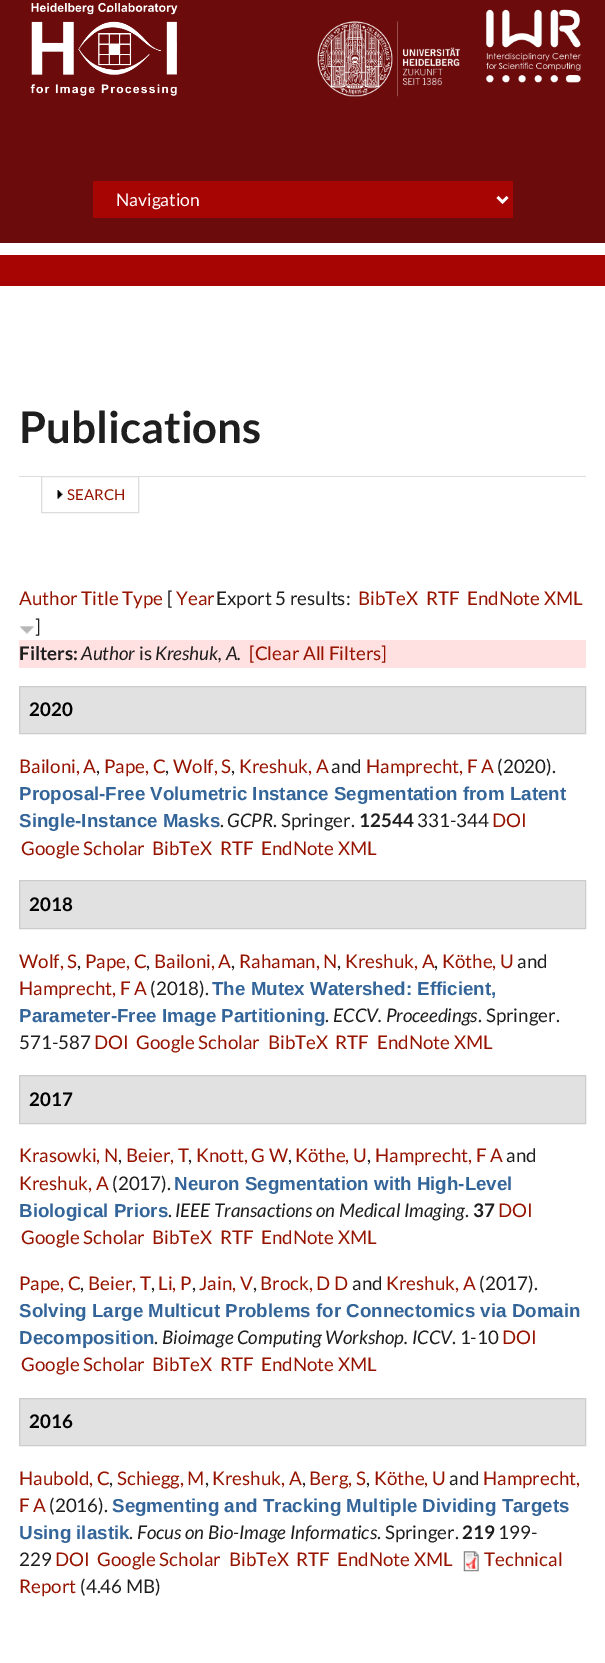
%!PS
<< /PageSize [605 1663] >> setpagedevice
/m/moveto load def
/l/rlineto load def
/z/closepath load def
/f/fill load def
/s/stroke load def
/q/gsave load def
/Q_/grestore load def
/w/setlinewidth load def
/C { dup -16 bitshift 255 div exch dup -8 bitshift 255 and 255 div exch 255 and 255 div setrgbcolor } def
/F { [ exch dup neg 0 0 3 -1 roll 0 0 ] selectfont } def
/T { moveto show } def
/R { rectfill } def
/I { 5 dict begin { /h /w /y /x /name } { exch def } forall
  gsave x y translate w h scale
  w h 8 [w 0 0 h 0 0] name (r) file false 3 colorimage grestore end } def
0 1663 translate 1 -1 scale
4 setmiterlimit
16#FFFFFF C
0 0 605 1663 R
16#6C0B0B C
0 0 605 243 R
(1.rgb) 30 2 148 94 I
(2.rgb) 317 21 143 76 I
(3.rgb) 486 9 95 74 I
16#A70404 C
93 181 420 37 R
16#FFFFFF C
2.5 w
497.5 197 m 5 5 l 5 -5 l s
/Lato-Regular 17.5 F
(Navigation) 116 206 T
16#A70404 C
0 255 605 31 R
/Lato-Bold 43.75 F
16#1E1E1E C
(Publications) 19 443 T
16#DDDDDD C
19 476 567 1 R
1 w
41.5 476.5 97 36 rectstroke
(4.rgb) 57 490 6 9 I
/Lato-Regular 15 F
16#961300 C
(SEARCH) 67 500 T
/Lato-Regular 18.75 F
(Author Title Type) 19 605 T
16#1E1E1E C
([) 167 605 T
16#961300 C
(Year) 176 605 T
16#1E1E1E C
(Export 5 results:) 216 605 T
16#961300 C
(BibTeX) 358 605 T
(RTF) 426 605 T
(EndNote XML) 467 605 T
(5.rgb) 20 626 14 8 I
16#1E1E1E C
(]) 35 633 T
16#FFE1E1 C
19 640 567 28 R
/Lato-Bold 18.75 F
16#1E1E1E C
(Filters:) 19 660 T
/Lato-Italic 18.75 F
(Author) 81 660 T
/Lato-Regular 18.75 F
(is) 139 660 T
/Lato-Italic 18.75 F
(Kreshuk, A.) 155 660 T
/Lato-Regular 18.75 F
16#961300 C
([Clear All Filters]) 249 660 T
16#E1E1E1 C
19.5 686.5 m 566 0 l 0 47 l -566 0 l z q f Q_
16#CCCCCC C
s
/Lato-Bold 18.75 F
16#000000 C
(2020) 29 716 T
/Lato-Regular 18.75 F
16#961300 C
(Bailoni, A) 19 773 T
16#1E1E1E C
(,) 96 773 T
16#961300 C
(Pape, C) 104 773 T
16#1E1E1E C
(,) 165 773 T
16#961300 C
(Wolf, S) 173 773 T
16#1E1E1E C
(,) 231 773 T
16#961300 C
(Kreshuk, A) 239 773 T
16#1E1E1E C
(and) 331 773 T
16#961300 C
(Hamprecht, F A) 366 773 T
16#1E1E1E C
(\(2020\).) 497 773 T
/LiberationSans-Bold 18.75 F
16#336599 C
(Proposal-Free Volumetric Instance Segmentation from Latent) 19 800 T
(Single-Instance Masks) 19 827 T
/Lato-Regular 18.75 F
16#1E1E1E C
(.) 220 827 T
/Lato-Italic 18.75 F
(GCPR) 227 827 T
/Lato-Regular 18.75 F
(. Springer.) 273 827 T
/Lato-Bold 18.75 F
(12544) 359 827 T
/Lato-Regular 18.75 F
(331-344) 417 827 T
16#961300 C
(DOI) 492 827 T
(Google Scholar) 21 855 T
(BibTeX) 152 855 T
(RTF) 220 855 T
(EndNote XML) 261 855 T
16#E1E1E1 C
19.5 880.5 m 566 0 l 0 48 l -566 0 l z q f Q_
16#CCCCCC C
s
/Lato-Bold 18.75 F
16#000000 C
(2018) 29 911 T
/Lato-Regular 18.75 F
16#961300 C
(Wolf, S) 19 968 T
16#1E1E1E C
(,) 77 968 T
16#961300 C
(Pape, C) 85 968 T
16#1E1E1E C
(,) 146 968 T
16#961300 C
(Bailoni, A) 154 968 T
16#1E1E1E C
(,) 231 968 T
16#961300 C
(Rahaman, N) 239 968 T
16#1E1E1E C
(,) 337 968 T
16#961300 C
(Kreshuk, A) 345 968 T
16#1E1E1E C
(,) 434 968 T
16#961300 C
(Köthe, U) 442 968 T
16#1E1E1E C
(and) 517 968 T
16#961300 C
(Hamprecht, F A) 19 995 T
16#1E1E1E C
(\(2018\).) 150 995 T
/LiberationSans-Bold 18.75 F
16#336599 C
(The Mutex Watershed: Efficient,) 212 995 T
(Parameter-Free Image Partitioning) 19 1022 T
/Lato-Regular 18.75 F
16#1E1E1E C
(.) 325 1022 T
/Lato-Italic 18.75 F
(ECCV. Proceedings) 333 1022 T
/Lato-Regular 18.75 F
(. Springer.) 478 1022 T
(571-587) 19 1049 T
16#961300 C
(DOI) 94 1049 T
(Google Scholar) 136 1049 T
(BibTeX) 268 1049 T
(RTF) 335 1049 T
(EndNote XML) 377 1049 T
16#E1E1E1 C
19.5 1075.5 m 566 0 l 0 48 l -566 0 l z q f Q_
16#CCCCCC C
s
/Lato-Bold 18.75 F
16#000000 C
(2017) 29 1106 T
/Lato-Regular 18.75 F
16#961300 C
(Krasowki, N) 19 1162 T
16#1E1E1E C
(,) 118 1162 T
16#961300 C
(Beier, T) 126 1162 T
16#1E1E1E C
(,) 188 1162 T
16#961300 C
(Knott, G W) 196 1162 T
16#1E1E1E C
(,) 288 1162 T
16#961300 C
(Köthe, U) 295 1162 T
16#1E1E1E C
(,) 367 1162 T
16#961300 C
(Hamprecht, F A) 375 1162 T
16#1E1E1E C
(and) 506 1162 T
16#961300 C
(Kreshuk, A) 19 1190 T
16#1E1E1E C
(\(2017\).) 112 1190 T
/LiberationSans-Bold 18.75 F
16#336599 C
(Neuron Segmentation with High-Level) 174 1190 T
(Biological Priors) 19 1217 T
/Lato-Regular 18.75 F
16#1E1E1E C
(.) 168 1217 T
/Lato-Italic 18.75 F
(IEEE Transactions on Medical Imaging) 175 1217 T
/Lato-Regular 18.75 F
(.) 465 1217 T
/Lato-Bold 18.75 F
(37) 473 1217 T
/Lato-Regular 18.75 F
16#961300 C
(DOI) 498 1217 T
(Google Scholar) 21 1244 T
(BibTeX) 152 1244 T
(RTF) 220 1244 T
(EndNote XML) 261 1244 T
(Pape, C) 19 1290 T
16#1E1E1E C
(,) 80 1290 T
16#961300 C
(Beier, T) 88 1290 T
16#1E1E1E C
(,) 151 1290 T
16#961300 C
(Li, P) 158 1290 T
16#1E1E1E C
(,) 192 1290 T
16#961300 C
(Jain, V) 199 1290 T
16#1E1E1E C
(,) 253 1290 T
16#961300 C
(Brock, D D) 260 1290 T
16#1E1E1E C
(and) 352 1290 T
16#961300 C
(Kreshuk, A) 386 1290 T
16#1E1E1E C
(\(2017\).) 479 1290 T
/LiberationSans-Bold 18.75 F
16#336599 C
(Solving Large Multicut Problems for Connectomics via Domain) 19 1317 T
(Decomposition) 19 1344 T
/Lato-Regular 18.75 F
16#1E1E1E C
(.) 154 1344 T
/Lato-Italic 18.75 F
(Bioimage Computing Workshop. ICCV) 162 1344 T
/Lato-Regular 18.75 F
(. 1-10) 452 1344 T
16#961300 C
(DOI) 502 1344 T
(Google Scholar) 21 1371 T
(BibTeX) 152 1371 T
(RTF) 220 1371 T
(EndNote XML) 261 1371 T
16#E1E1E1 C
19.5 1398.5 m 566 0 l 0 47 l -566 0 l z q f Q_
16#CCCCCC C
s
/Lato-Bold 18.75 F
16#000000 C
(2016) 29 1428 T
/Lato-Regular 18.75 F
16#961300 C
(Haubold, C) 19 1485 T
16#1E1E1E C
(,) 109 1485 T
16#961300 C
(Schiegg, M) 117 1485 T
16#1E1E1E C
(,) 205 1485 T
16#961300 C
(Kreshuk, A) 212 1485 T
16#1E1E1E C
(,) 302 1485 T
16#961300 C
(Berg, S) 309 1485 T
16#1E1E1E C
(,) 366 1485 T
16#961300 C
(Köthe, U) 374 1485 T
16#1E1E1E C
(and) 449 1485 T
16#961300 C
(Hamprecht,) 483 1485 T
(F A) 19 1512 T
16#1E1E1E C
(\(2016\).) 49 1512 T
/LiberationSans-Bold 18.75 F
16#336599 C
(Segmenting and Tracking Multiple Dividing Targets) 112 1512 T
(Using ilastik) 19 1539 T
/Lato-Regular 18.75 F
16#1E1E1E C
(.) 129 1539 T
/Lato-Italic 18.75 F
(Focus on Bio-Image Informatics) 137 1539 T
/Lato-Regular 18.75 F
(. Springer.) 377 1539 T
/Lato-Bold 18.75 F
(219) 462 1539 T
/Lato-Regular 18.75 F
(199-) 498 1539 T
(229) 19 1566 T
16#961300 C
(DOI) 55 1566 T
(Google Scholar) 97 1566 T
(BibTeX) 229 1566 T
(RTF) 296 1566 T
(EndNote XML) 337 1566 T
(6.rgb) 463 1551 16 21 I
(Technical) 484 1566 T
(Report) 19 1593 T
16#1E1E1E C
(\(4.46 MB\)) 80 1593 T
showpage
